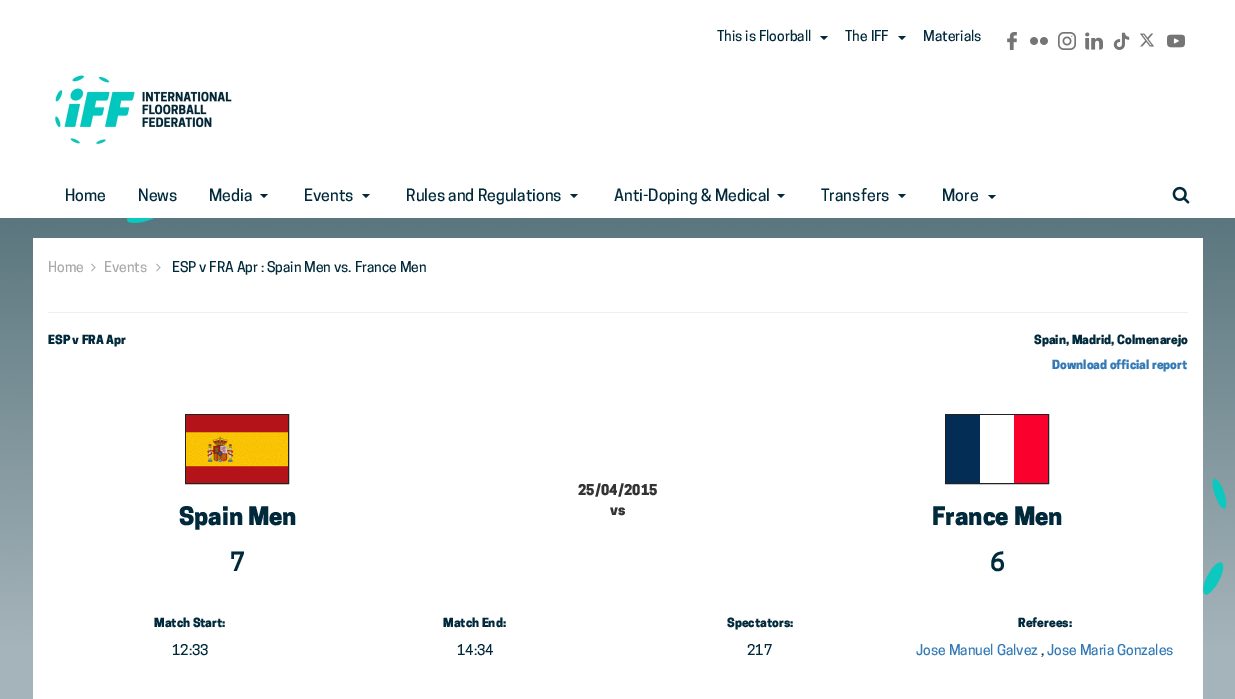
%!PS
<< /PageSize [1235 699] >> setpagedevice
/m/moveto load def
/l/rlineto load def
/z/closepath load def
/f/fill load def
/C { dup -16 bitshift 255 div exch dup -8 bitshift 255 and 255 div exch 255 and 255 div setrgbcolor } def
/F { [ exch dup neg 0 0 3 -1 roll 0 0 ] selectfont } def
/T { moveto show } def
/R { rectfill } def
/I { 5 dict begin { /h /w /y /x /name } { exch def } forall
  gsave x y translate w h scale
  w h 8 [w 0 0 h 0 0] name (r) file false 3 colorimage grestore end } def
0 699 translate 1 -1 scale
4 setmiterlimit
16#A4B4BA C
0 0 1235 699 R
(1.rgb) 0 218 1235 426 I
16#FFFFFF C
0 0 1235 218 R
/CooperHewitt-Medium 14 F
16#002A3B C
(This is Floorball) 717 41 T
820 36 m 8 0 l -4 4 l z f
(The IFF) 845 41 T
898 36 m 8 0 l -4 4 l z f
(Materials) 923 41 T
(2.rgb) 1007 32 10 18 I
(3.rgb) 1030 37 18 8 I
(4.rgb) 1058 32 18 18 I
(5.rgb) 1085 32 18 18 I
(6.rgb) 1113 32 17 18 I
(7.rgb) 1140 33 15 14 I
(8.rgb) 1167 34 18 14 I
(9.rgb) 54 74 178 71 I
/CooperHewitt-Medium 16 F
(Home) 65 201 T
(News) 138 201 T
(Media) 209 201 T
260 194 m 8 0 l -4 4 l z f
(Events) 304 201 T
362 194 m 8 0 l -4 4 l z f
(Rules and Regulations) 406 201 T
570 194 m 8 0 l -4 4 l z f
(Anti-Doping & Medical) 614 201 T
777 194 m 8 0 l -4 4 l z f
(Transfers) 821 201 T
898 194 m 8 0 l -4 4 l z f
(More) 942 201 T
988 195 m 8 0 l -4 4 l z f
(10.rgb) 1172 186 18 18 I
16#FFFFFF C
33 238 1170 461 R
16#EEEEEE C
48 312 1140 1 R
/CooperHewitt-Medium 14 F
16#AAAAAA C
(Home) 48 272 T
(11.rgb) 91 263 5 9 I
(Events) 104 272 T
(11.rgb) 156 263 5 9 I
16#002A3B C
(ESP v FRA Apr : Spain Men vs. France Men) 172 272 T
/CooperHewitt-Black 12 F
(ESP v FRA Apr) 48 344 T
(Spain, Madrid, Colmenarejo) 1034 344 T
16#337AB7 C
(Download official report) 1052 369 T
/CooperHewitt-Black 14 F
16#333333 C
(25/04/2015) 578 495 T
(vs) 610 515 T
16#222222 C
185.5 414.5 103 69 rectstroke
(12.rgb) 186 415 102 68 I
/CooperHewitt-Black 24 F
16#002A3B C
(Spain Men) 179 525 T
/CooperHewitt-Bold 24 F
(7) 230 571 T
16#222222 C
945.5 414.5 103 69 rectstroke
(13.rgb) 946 415 102 68 I
/CooperHewitt-Black 24 F
16#002A3B C
(France Men) 932 525 T
/CooperHewitt-Bold 24 F
(6) 990 571 T
/CooperHewitt-Black 12 F
(Match Start:) 154 627 T
/CooperHewitt-Medium 14 F
(12:33) 172 655 T
/CooperHewitt-Black 12 F
(Match End:) 443 627 T
/CooperHewitt-Medium 14 F
(14:34) 457 655 T
/CooperHewitt-Black 12 F
(Spectators:) 727 627 T
/CooperHewitt-Medium 14 F
(217) 747 655 T
/CooperHewitt-Black 12 F
(Referees:) 1018 627 T
/CooperHewitt-Medium 14 F
16#337AB7 C
(Jose Manuel Galvez) 916 655 T
16#002A3B C
(,) 1041 655 T
16#337AB7 C
(Jose Maria Gonzales) 1047 655 T
showpage
